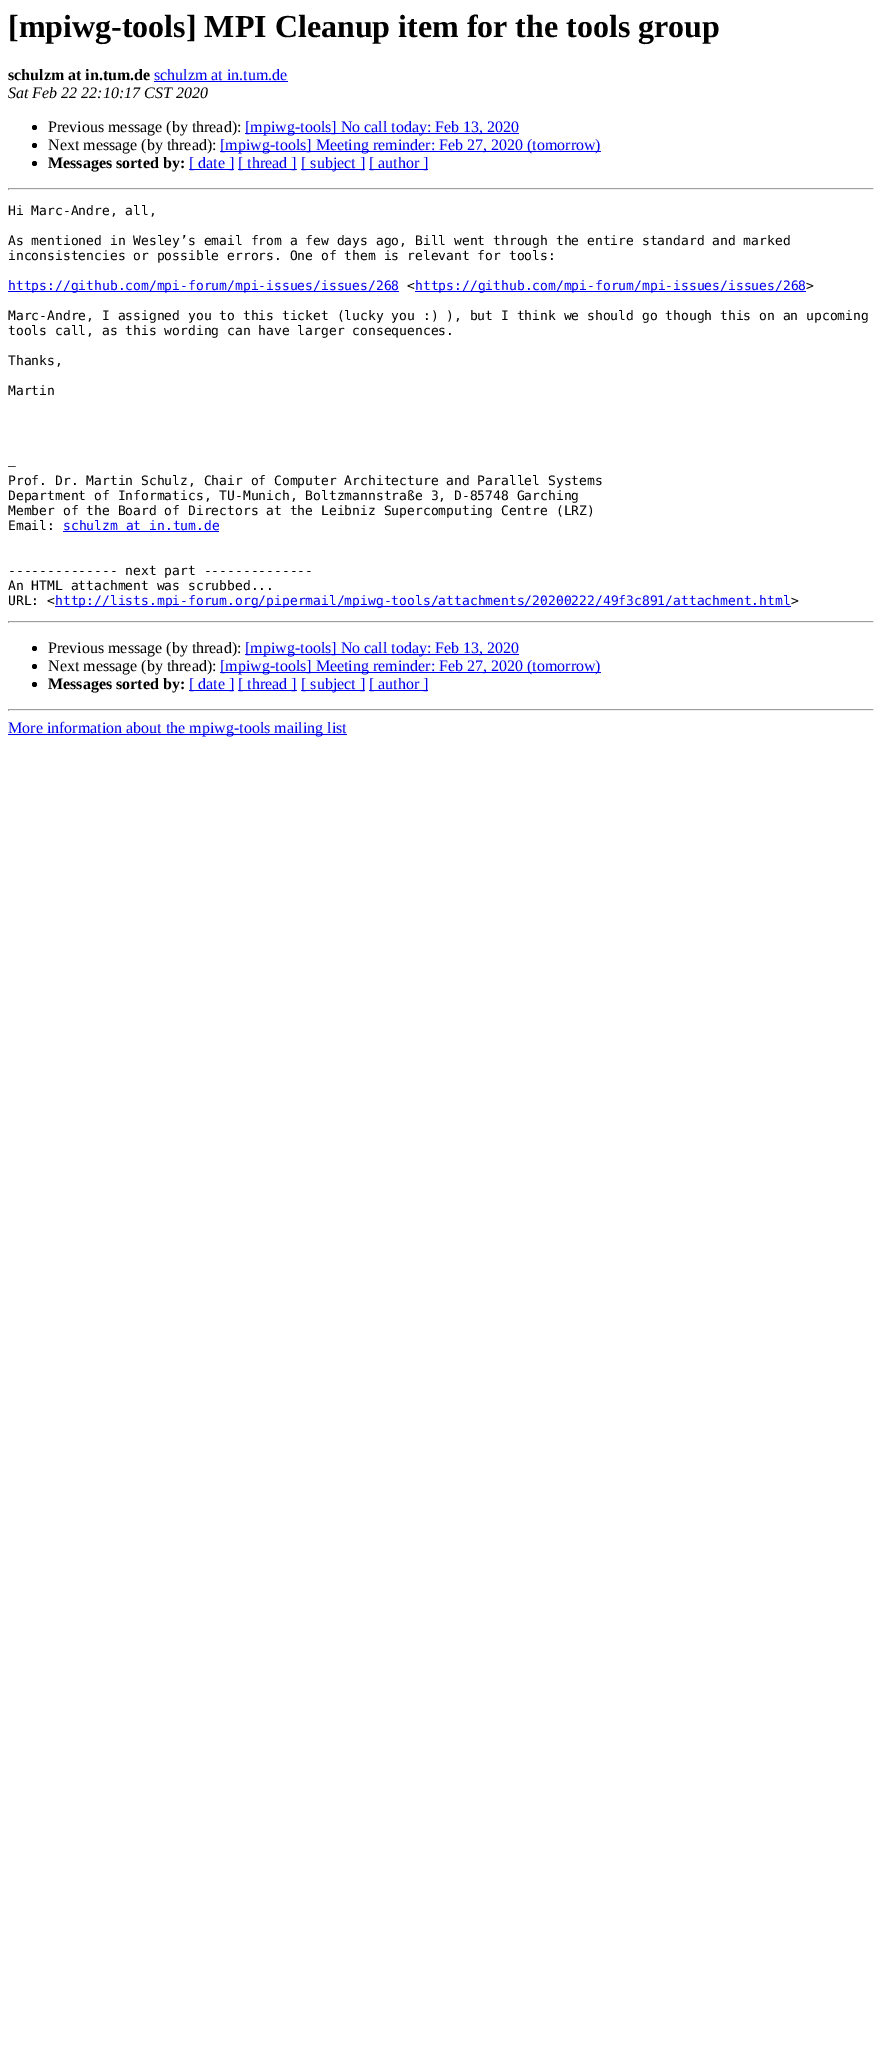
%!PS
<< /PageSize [882 2066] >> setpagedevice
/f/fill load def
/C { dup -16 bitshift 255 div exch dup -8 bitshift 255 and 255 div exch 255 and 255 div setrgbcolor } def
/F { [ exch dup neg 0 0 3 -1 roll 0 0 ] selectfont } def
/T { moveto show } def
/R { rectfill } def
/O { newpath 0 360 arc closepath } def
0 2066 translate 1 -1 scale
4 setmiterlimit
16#FFFFFF C
0 0 882 2066 R
/LiberationSerif-Bold 32 F
16#000000 C
([mpiwg-tools] MPI Cleanup item for the tools group) 8 37 T
/LiberationSerif-Bold 16 F
(schulzm at in.tum.de) 8 80 T
/LiberationSerif-Regular 16 F
16#0000EE C
(schulzm at in.tum.de) 154 80 T
154 81 134 1 R
/LiberationSerif-Italic 16 F
16#000000 C
(Sat Feb 22 22:10:17 CST 2020) 8 98 T
34.5 127.5 2.5 O f
/LiberationSerif-Regular 16 F
(Previous message \(by thread\):) 48 132 T
16#0000EE C
245 133 274 1 R
([mpiwg-tools] No call today: Feb 13, 2020) 245 132 T
16#000000 C
34.5 145.5 2.5 O f
(Next message \(by thread\):) 48 150 T
16#0000EE C
220 151 381 1 R
([mpiwg-tools] Meeting reminder: Feb 27, 2020 \(tomorrow\)) 220 150 T
16#000000 C
34.5 163.5 2.5 O f
/LiberationSerif-Bold 16 F
(Messages sorted by:) 48 168 T
16#0000EE C
189 169 45 1 R
/LiberationSerif-Regular 16 F
([ date ]) 189 168 T
238 169 59 1 R
([ thread ]) 238 168 T
301 169 64 1 R
([ subject ]) 301 168 T
369 169 59 1 R
([ author ]) 369 168 T
16#9F9F9F C
8 188 866 1 R
16#EEEEEE C
873 188 1 2 R
8 189 866 1 R
16#9F9F9F C
8 188 1 2 R
/DejaVuSansMono-Regular 13 F
16#000000 C
(Hi Marc-Andre, all,) 8 215 T
(As mentioned in Wesley’s email from a few days ago, Bill went through the entire standard and marked) 8 245 T
(inconsistencies or possible errors. One of them is relevant for tools:) 8 260 T
16#0000EE C
8 291 391 1 R
(https://github.com/mpi-forum/mpi-issues/issues/268) 8 290 T
16#000000 C
(<) 407 290 T
16#0000EE C
415 291 391 1 R
(https://github.com/mpi-forum/mpi-issues/issues/268) 415 290 T
16#000000 C
(>) 806 290 T
(Marc-Andre, I assigned you to this ticket \(lucky you :\) \), but I think we should go though this on an upcoming) 8 320 T
(tools call, as this wording can have larger consequences.) 8 335 T
(Thanks,) 8 365 T
(Martin) 8 395 T
(—) 8 470 T
(Prof. Dr. Martin Schulz, Chair of Computer Architecture and Parallel Systems) 8 485 T
(Department of Informatics, TU-Munich, Boltzmannstraße 3, D-85748 Garching) 8 500 T
(Member of the Board of Directors at the Leibniz Supercomputing Centre \(LRZ\)) 8 515 T
(Email:) 8 530 T
16#0000EE C
(schulzm at in.tum.de) 63 530 T
63 531 156 1 R
16#000000 C
(-------------- next part --------------) 8 575 T
(An HTML attachment was scrubbed...) 8 590 T
(URL: <) 8 605 T
16#0000EE C
55 606 736 1 R
(http://lists.mpi-forum.org/pipermail/mpiwg-tools/attachments/20200222/49f3c891/attachment.html) 55 605 T
16#000000 C
(>) 791 605 T
16#9F9F9F C
8 621 866 1 R
16#EEEEEE C
873 621 1 2 R
8 622 866 1 R
16#9F9F9F C
8 621 1 2 R
16#000000 C
34.5 648.5 2.5 O f
/LiberationSerif-Regular 16 F
(Previous message \(by thread\):) 48 653 T
16#0000EE C
245 654 274 1 R
([mpiwg-tools] No call today: Feb 13, 2020) 245 653 T
16#000000 C
34.5 666.5 2.5 O f
(Next message \(by thread\):) 48 671 T
16#0000EE C
220 672 381 1 R
([mpiwg-tools] Meeting reminder: Feb 27, 2020 \(tomorrow\)) 220 671 T
16#000000 C
34.5 684.5 2.5 O f
/LiberationSerif-Bold 16 F
(Messages sorted by:) 48 689 T
16#0000EE C
189 690 45 1 R
/LiberationSerif-Regular 16 F
([ date ]) 189 689 T
238 690 59 1 R
([ thread ]) 238 689 T
301 690 64 1 R
([ subject ]) 301 689 T
369 690 59 1 R
([ author ]) 369 689 T
16#9F9F9F C
8 709 866 1 R
16#EEEEEE C
873 709 1 2 R
8 710 866 1 R
16#9F9F9F C
8 709 1 2 R
16#0000EE C
8 734 339 1 R
(More information about the mpiwg-tools mailing list) 8 733 T
showpage
